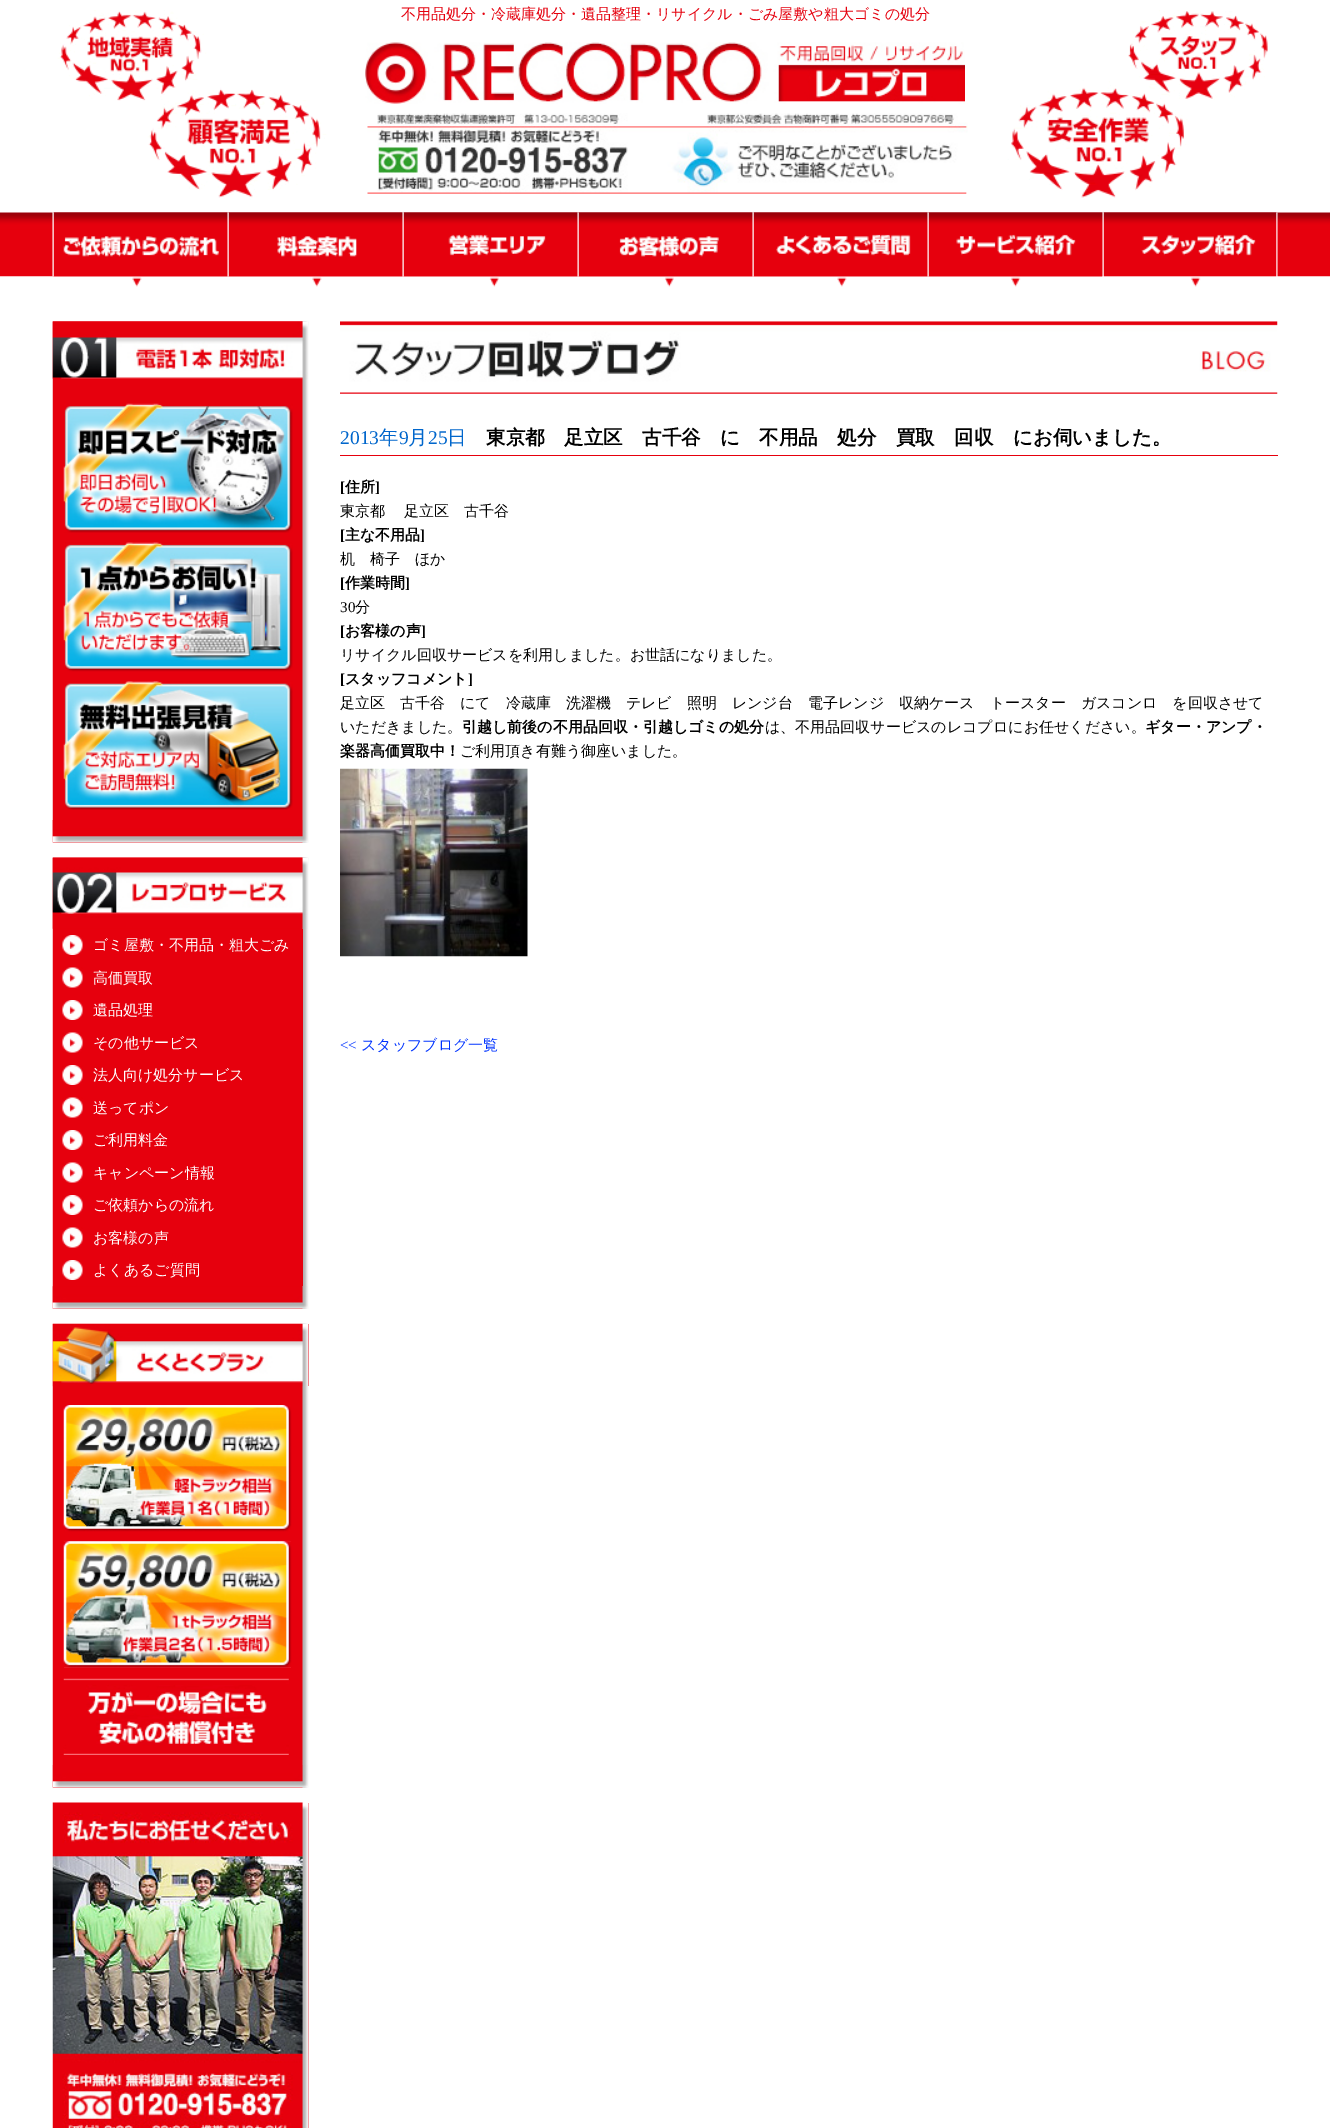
%!PS
<< /PageSize [1330 2128] >> setpagedevice
/C { dup -16 bitshift 255 div exch dup -8 bitshift 255 and 255 div exch 255 and 255 div setrgbcolor } def
/F { [ exch dup neg 0 0 3 -1 roll 0 0 ] selectfont } def
/T { moveto show } def
/R { rectfill } def
/I { 5 dict begin { /h /w /y /x /name } { exch def } forall
  gsave x y translate w h scale
  w h 8 [w 0 0 h 0 0] name (r) file false 3 colorimage grestore end } def
0 2128 translate 1 -1 scale
4 setmiterlimit
16#FFFFFF C
0 0 1330 2128 R
(1.rgb) 0 212 1330 65 I
(2.rgb) 52 10 1216 203 I
/WenQuanYiZenHei-Medium 15 F
16#E5000D C
(不用品処分・冷蔵庫処分・遺品整理・リサイクル・ごみ屋敷や粗大ゴミの処分) 401 19 T
(3.rgb) 365 42 600 62 I
(4.rgb) 367 113 601 81 I
(5.rgb) 52 212 176 75 I
(6.rgb) 227 212 176 75 I
(7.rgb) 402 212 176 75 I
(8.rgb) 577 212 176 75 I
(9.rgb) 752 212 176 75 I
(10.rgb) 927 212 176 75 I
(11.rgb) 1102 212 176 75 I
(12.rgb) 340 321 938 73 I
16#E6000D C
340 455 938 1 R
/LiberationSerif-Regular 19.5 F
16#0066CC C
(2013) 340 444 T
/WenQuanYiZenHei-Medium 19.5 F
(年) 379 444 T
/LiberationSerif-Regular 19.5 F
(9) 399 444 T
/WenQuanYiZenHei-Medium 19.5 F
(月) 408 444 T
/LiberationSerif-Regular 19.5 F
(25) 428 444 T
/WenQuanYiZenHei-Medium 19.5 F
(日) 447 444 T
/WenQuanYiZenHei-Bold 19.5 F
16#000000 C
(東京都　足立区　古千谷　に　不用品　処分　買取　回収　にお伺いました。) 486 444 T
/LiberationSerif-Bold 15 F
([) 340 492 T
/WenQuanYiZenHei-Bold 15 F
(住所) 345 492 T
/LiberationSerif-Bold 15 F
(]) 375 492 T
/WenQuanYiZenHei-Medium 15 F
(東京都) 340 516 T
(足立区　古千谷) 404 516 T
/LiberationSerif-Bold 15 F
([) 340 540 T
/WenQuanYiZenHei-Bold 15 F
(主な不用品) 345 540 T
/LiberationSerif-Bold 15 F
(]) 420 540 T
/WenQuanYiZenHei-Medium 15 F
(机　椅子　ほか) 340 564 T
/LiberationSerif-Bold 15 F
([) 340 588 T
/WenQuanYiZenHei-Bold 15 F
(作業時間) 345 588 T
/LiberationSerif-Bold 15 F
(]) 405 588 T
/LiberationSerif-Regular 15 F
(30) 340 612 T
/WenQuanYiZenHei-Medium 15 F
(分) 355 612 T
/LiberationSerif-Bold 15 F
([) 340 636 T
/WenQuanYiZenHei-Bold 15 F
(お客様の声) 345 636 T
/LiberationSerif-Bold 15 F
(]) 421 636 T
/WenQuanYiZenHei-Medium 15 F
(リサイクル回収サービスを利用しました。お世話になりました。) 340 660 T
/LiberationSerif-Bold 15 F
([) 340 684 T
/WenQuanYiZenHei-Bold 15 F
(スタッフコメント) 345 684 T
/LiberationSerif-Bold 15 F
(]) 468 684 T
/WenQuanYiZenHei-Medium 15 F
(足立区　古千谷　にて　冷蔵庫　洗濯機　テレビ　照明　レンジ台　電子レンジ　収納ケース　トースター　ガスコンロ　を回収させて) 340 708 T
(いただきました。) 340 732 T
/WenQuanYiZenHei-Bold 15 F
(引越し前後の不用品回収・引越しゴミの処分) 462 732 T
/WenQuanYiZenHei-Medium 15 F
(は、不用品回収サービスのレコプロにお任せください。) 765 732 T
/WenQuanYiZenHei-Bold 15 F
(ギター・アンプ・) 1145 732 T
(楽器高価買取中！) 340 756 T
/WenQuanYiZenHei-Medium 15 F
(ご利用頂き有難う御座いました。) 460 756 T
(13.rgb) 340 768 188 189 I
/LiberationSerif-Regular 15 F
16#0033FF C
(<<) 340 1050 T
/WenQuanYiZenHei-Medium 15 F
(スタッフブログ一覧) 361 1050 T
(14.rgb) 52 321 257 522 I
(15.rgb) 52 321 256 58 I
(16.rgb) 63 403 230 130 I
(17.rgb) 63 542 230 130 I
(18.rgb) 63 681 230 129 I
(19.rgb) 52 820 256 23 I
(20.rgb) 52 857 257 452 I
(21.rgb) 52 857 256 72 I
16#E6000D C
302 929 1 357 R
(22.rgb) 62 935 21 20 I
16#FFFFFF C
(ゴミ屋敷・不用品・粗大ごみ) 93 950 T
(23.rgb) 62 967 21 21 I
(高価買取) 93 983 T
(22.rgb) 62 1000 21 20 I
(遺品処理) 93 1015 T
(23.rgb) 62 1032 21 21 I
(その他サービス) 93 1048 T
(22.rgb) 62 1065 21 20 I
(法人向け処分サービス) 93 1080 T
(23.rgb) 62 1097 21 21 I
(送ってポン) 93 1113 T
(22.rgb) 62 1130 21 20 I
(ご利用料金) 93 1145 T
(24.rgb) 62 1162 21 21 I
(キャンペーン情報) 93 1178 T
(22.rgb) 62 1195 21 20 I
(ご依頼からの流れ) 93 1210 T
(23.rgb) 62 1227 21 21 I
(お客様の声) 93 1243 T
(22.rgb) 62 1260 21 20 I
(よくあるご質問) 93 1275 T
(25.rgb) 52 1286 256 23 I
(26.rgb) 52 1323 257 465 I
16#EE303C C
308 1324 1 62 R
(27.rgb) 52 1323 257 64 I
(28.rgb) 63 1405 229 127 I
64 1541 227 127 R
(29.rgb) 63 1541 229 127 I
(30.rgb) 63 1678 226 77 I
(31.rgb) 52 1765 256 23 I
308 1803 1 325 R
(32.rgb) 52 1802 257 326 I
showpage
